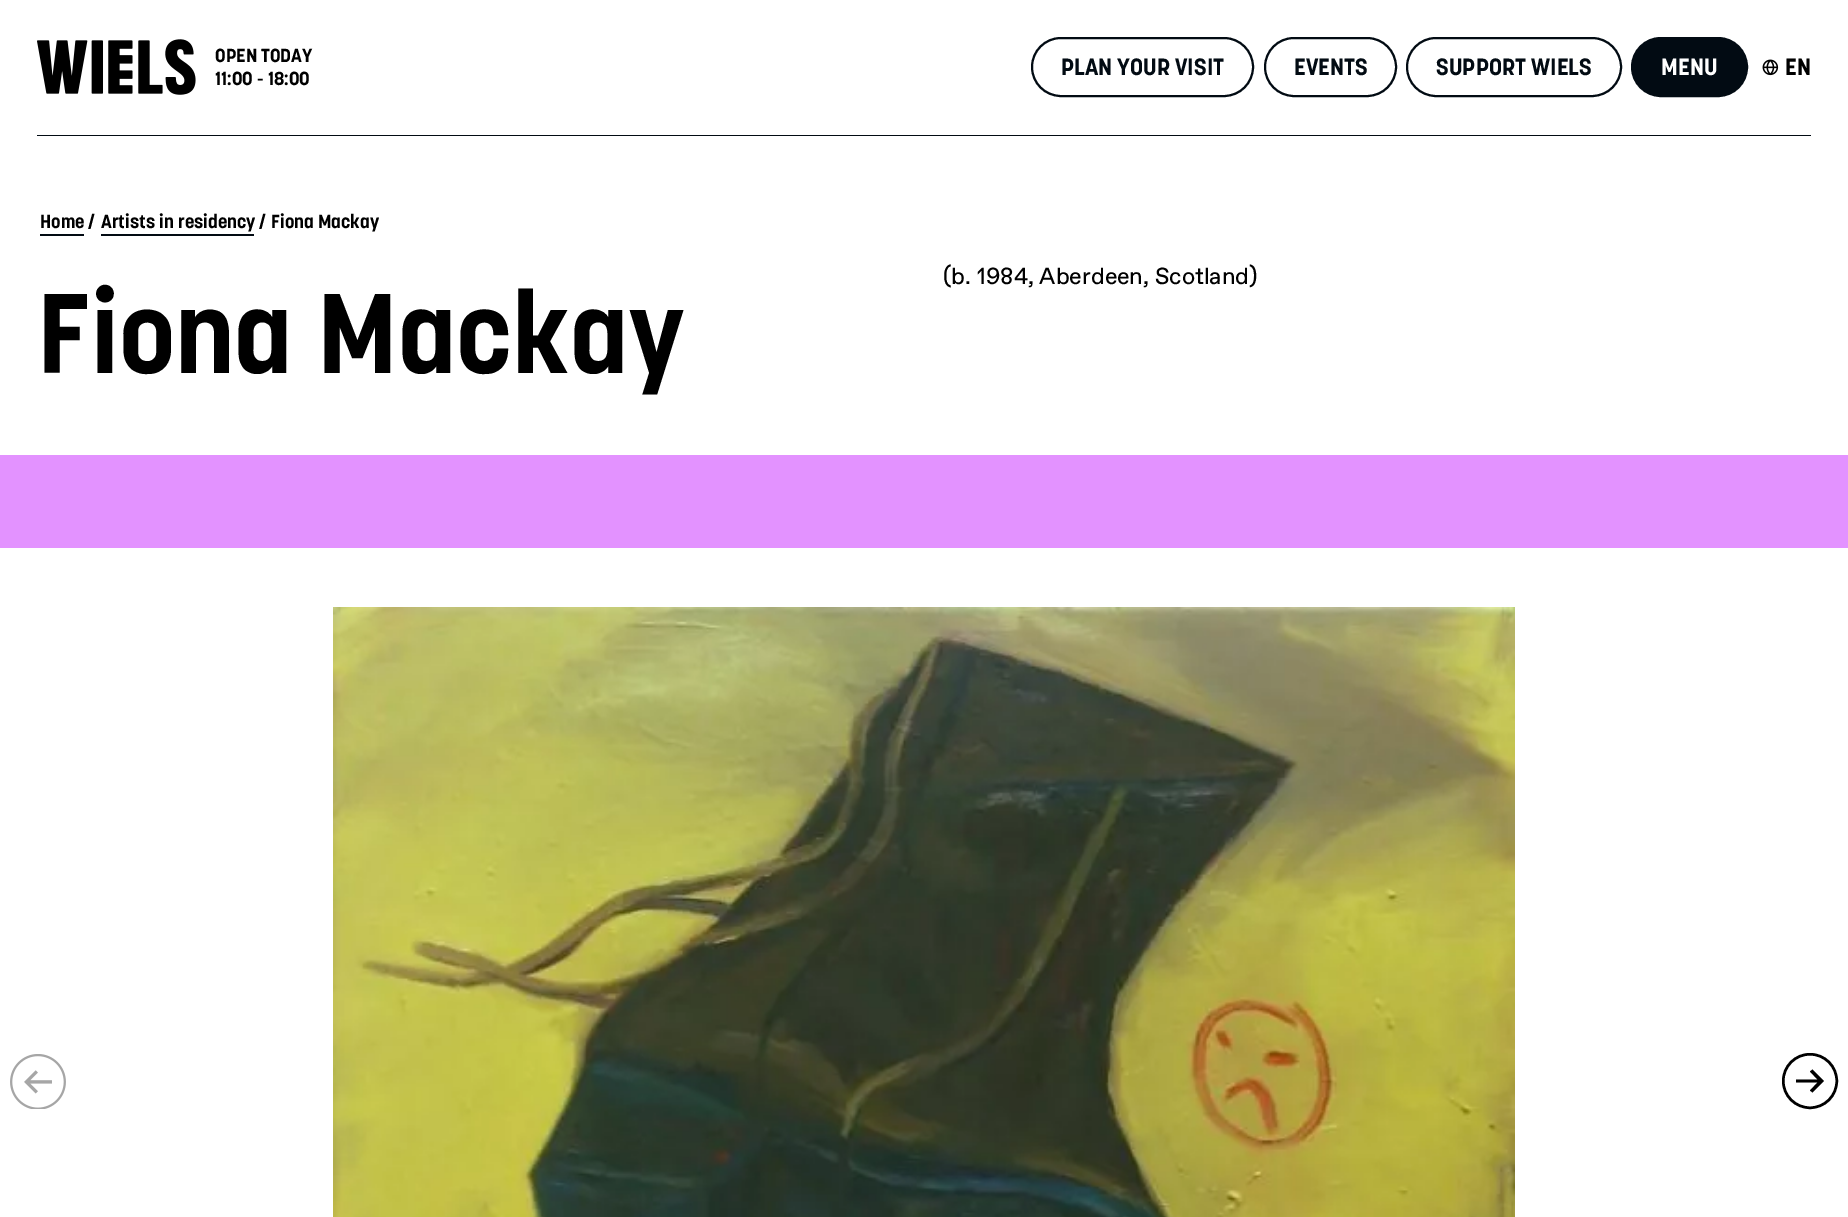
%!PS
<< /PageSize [1848 1217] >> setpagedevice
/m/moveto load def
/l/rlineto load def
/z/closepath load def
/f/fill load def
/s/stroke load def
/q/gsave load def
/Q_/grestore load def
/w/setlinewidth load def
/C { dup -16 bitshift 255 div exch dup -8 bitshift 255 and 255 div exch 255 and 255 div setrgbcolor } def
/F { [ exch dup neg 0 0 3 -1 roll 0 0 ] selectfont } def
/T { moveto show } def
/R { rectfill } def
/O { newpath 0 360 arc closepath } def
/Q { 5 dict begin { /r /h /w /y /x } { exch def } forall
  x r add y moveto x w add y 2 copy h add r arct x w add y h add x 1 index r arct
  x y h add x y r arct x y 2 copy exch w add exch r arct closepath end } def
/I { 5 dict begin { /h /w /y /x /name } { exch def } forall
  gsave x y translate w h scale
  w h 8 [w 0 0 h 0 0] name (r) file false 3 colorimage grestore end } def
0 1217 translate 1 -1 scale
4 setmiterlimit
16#FFFFFF C
0 0 1848 1217 R
16#020B13 C
37 135 1774 1 R
(1.rgb) 37 39 159 56 I
/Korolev-Bold 18.75 F
16#000000 C
(OPEN TODAY) 215 62 T
(11:00 - 18:00) 215 85 T
16#020B13 C
2 w
1032 38 221 58 29 Q s
/Korolev-Bold 23.3 F
(PLAN YOUR VISIT) 1061 75 T
1265 38 131 58 29 Q s
(EVENTS) 1294 75 T
1407 38 214 58 29 Q s
(SUPPORT WIELS) 1436 75 T
1632 38 115 58 29 Q q f Q_
s
16#FFFFFF C
(MENU) 1661 75 T
(2.rgb) 1762 59 17 17 I
16#000000 C
(EN) 1785 75 T
16#020B13 C
40 234 44 2 R
/Korolev-Bold 18.75 F
16#000000 C
(Home) 40 228 T
(/) 88 228 T
16#020B13 C
101 234 153 2 R
16#000000 C
(Artists in residency) 101 228 T
(/) 259 228 T
(Fiona Mackay) 271 228 T
/Korolev-Bold 112 F
(Fiona Mackay) 37 373 T
/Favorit-Regular 23.3 F
(\(b. 1984, Aberdeen, Scotland\)) 943 284 T
16#E392FF C
0 455 1848 93 R
(3.rgb) 10 1054 56 55 I
(4.rgb) 333 607 1182 610 I
16#000000 C
2.5 w
1810 1081 26.75 O s
1812.5 1069.5 m -2.5 2 l 7.5 8 l -21.5 0 l 0 3 l 21.5 0 l -7.5 8 l 2.5 2 l 11.5 -11.5 l z eofill
showpage
